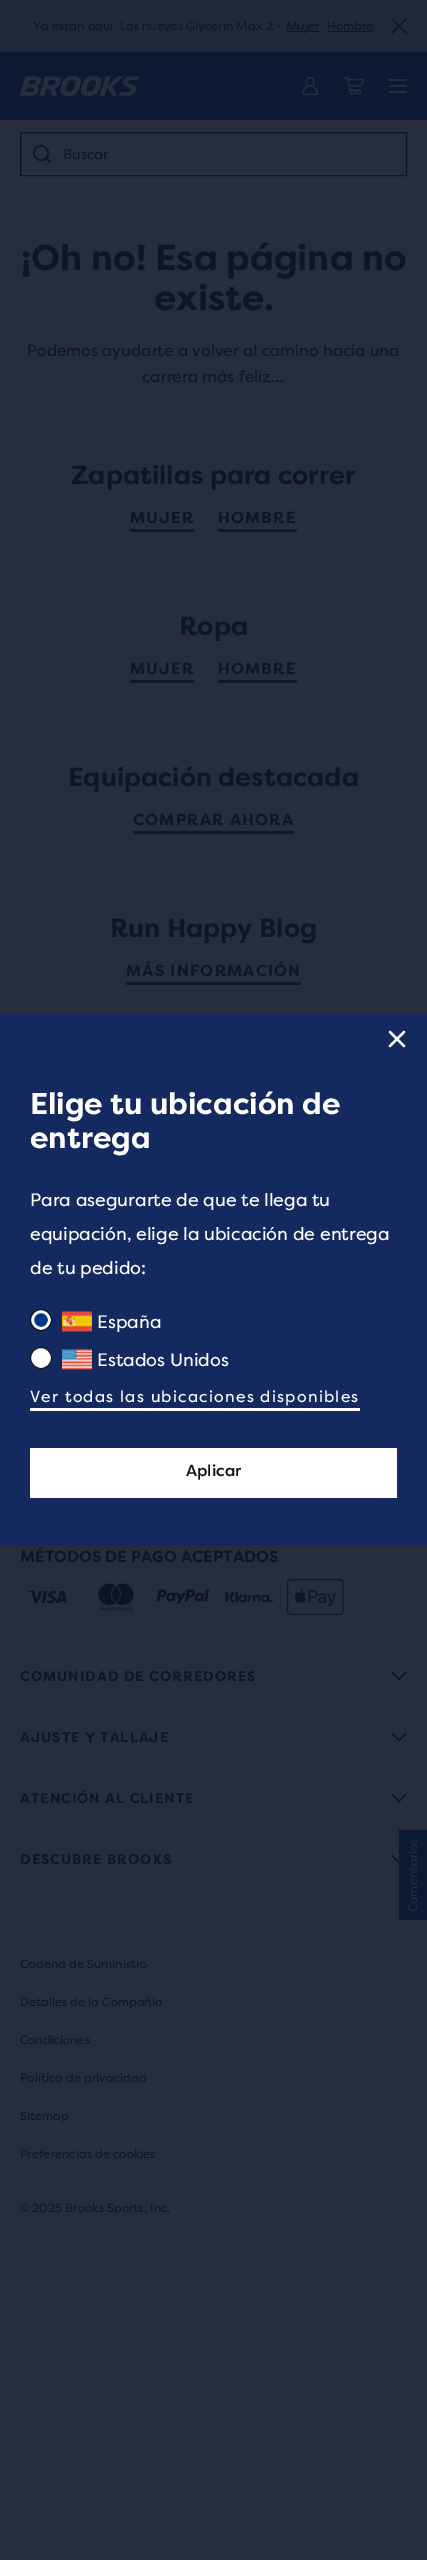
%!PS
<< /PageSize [427 2560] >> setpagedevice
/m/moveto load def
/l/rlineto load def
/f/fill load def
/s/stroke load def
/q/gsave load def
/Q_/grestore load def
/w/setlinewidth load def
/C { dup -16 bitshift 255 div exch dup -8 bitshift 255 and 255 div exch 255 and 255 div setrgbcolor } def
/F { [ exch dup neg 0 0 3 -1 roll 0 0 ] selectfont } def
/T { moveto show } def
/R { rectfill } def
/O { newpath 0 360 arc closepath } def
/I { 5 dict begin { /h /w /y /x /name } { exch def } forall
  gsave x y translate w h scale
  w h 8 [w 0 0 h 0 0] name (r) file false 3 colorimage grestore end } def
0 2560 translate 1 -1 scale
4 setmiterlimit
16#272D3C C
0 0 427 2560 R
16#202939 C
0 0 427 52 R
/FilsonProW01-Regular 12 F
16#0F1525 C
(Ya están aquí. Las nuevas Glycerin Max 2 -) 33 30 T
286 31 34 1 R
(Mujer) 286 30 T
(Hombre) 327 30 T
327 31 47 1 R
(1.rgb) 391 18 16 16 I
16#0D1930 C
0 52 427 68 R
(2.rgb) 20 76 120 20 I
(3.rgb) 302 77 16 18 I
(4.rgb) 344 77 20 18 I
16#272D3C C
389 79 18 2 R
389 85 18 2 R
389 91 18 2 R
16#0F1525 C
20.5 132.5 386 43 rectstroke
(5.rgb) 33 145 18 18 I
/FilsonProW01-Regular 14 F
(Buscar) 63 159 T
/FilsonProW01-Bold 36 F
(¡Oh no! Esa página no) 21 270 T
(existe.) 154 310 T
/FilsonProW01-Regular 16 F
(Podemos ayudarte a volver al camino hacia una) 27 356 T
(carrera más feliz…) 142 382 T
/FilsonProW01-Bold 26 F
(Zapatillas para correr) 71 484 T
/FilsonProW01-Bold 16 F
130 523 m 1.2 0 (MUJER) ashow
16#0D1930 C
130 529 64 3 R
16#0F1525 C
218 523 m 1.2 0 (HOMBRE) ashow
16#0D1930 C
218 529 79 3 R
/FilsonProW01-Bold 26 F
16#0F1525 C
(Ropa) 179 635 T
/FilsonProW01-Bold 16 F
130 674 m 1.2 0 (MUJER) ashow
16#0D1930 C
130 680 64 3 R
16#0F1525 C
218 674 m 1.2 0 (HOMBRE) ashow
16#0D1930 C
218 680 79 3 R
/FilsonProW01-Bold 26 F
16#0F1525 C
(Equipación destacada) 68 786 T
/FilsonProW01-Bold 16 F
133 825 m 1.2 0 (COMPRAR AHORA) ashow
16#0D1930 C
133 831 161 3 R
/FilsonProW01-Bold 26 F
16#0F1525 C
(Run Happy Blog) 110 937 T
/FilsonProW01-Bold 16 F
126 976 m 1.2 0 (MÁS INFORMACIÓN) ashow
16#0D1930 C
126 982 175 3 R
16#0F1525 C
(MÉTODOS DE PAGO ACEPTADOS) 20 1562 T
(6.rgb) 28 1590 39 14 I
(7.rgb) 98 1583 36 28 I
(8.rgb) 157 1589 52 15 I
(9.rgb) 225 1591 48 12 I
(10.rgb) 287 1579 57 36 I
16#222837 C
20 1889 387 1 R
20 1645 387 1 R
/FilsonProW01-Bold 14 F
16#0F1525 C
20 1681 m 1 0 (COMUNIDAD DE CORREDORES) ashow
(11.rgb) 391 1671 16 10 I
16#222837 C
20 1706 387 1 R
16#0F1525 C
20 1742 m 1 0 (AJUSTE Y TALLAJE) ashow
(11.rgb) 391 1732 16 10 I
16#222837 C
20 1767 387 1 R
16#0F1525 C
20 1803 m 1 0 (ATENCIÓN AL CLIENTE) ashow
(11.rgb) 391 1793 16 10 I
16#222837 C
20 1828 387 1 R
16#0F1525 C
20 1864 m 1 0 (DESCUBRE BROOKS) ashow
(12.rgb) 391 1854 8 10 I
16#222837 C
20 1926 387 1 R
/FilsonProW01-Regular 12 F
16#0F1525 C
(Cadena de Suministro) 20 1968 T
(Detalles de la Compañia) 20 2006 T
(Condiciones) 20 2044 T
(Política de privacidad) 20 2082 T
(Sitemap) 20 2120 T
(Preferencias de cookies) 20 2158 T
/LiberationSans-Regular 12 F
(©) 20 2212 T
/FilsonProW01-Regular 12 F
(2025 Brooks Sports, Inc.) 32 2212 T
16#14295F C
0 1014 427 532 R
16#FFFFFF C
2.3 w
1 setlinecap
1 setlinejoin
390 1032 m 14 14 l 404 1032 m -14 14 l s
/FilsonProW01-Bold 30 F
(Elige tu ubicación de) 30 1114 T
(entrega) 30 1148 T
/FilsonProW01-Regular 18 F
(Para asegurarte de que te llega tu) 30 1206 T
(equipación, elige la ubicación de entrega) 30 1240 T
(de tu pedido:) 30 1274 T
16#003789 C
41 1320 11 O f
16#FFFFFF C
3 w
0 setlinecap
0 setlinejoin
41 1320 8.5 O s
16#0E131F C
1 w
41 1320 10.5 O s
(13.rgb) 62 1311 30 21 I
16#FFFFFF C
(España) 97 1328 T
41 1358 10.5 O q f Q_
16#0E131F C
s
(14.rgb) 62 1349 30 21 I
16#FFFFFF C
(Estados Unidos) 97 1366 T
/FilsonProW01-Regular 16 F
30 1402 m 1.2 0 (Ver todas las ubicaciones disponibles) ashow
30 1408 330 3 R
30 1448 367 50 R
/FilsonProW01-Medium 16 F
16#0E131F C
(Aplicar) 186 1476 T
16#0D1930 C
399 1830 28 90 R
/FilsonProW01-Regular 12 F
16#272D3C C
q 417 1912 translate -90 rotate 0 0 m (Comentarios) show Q_
showpage
